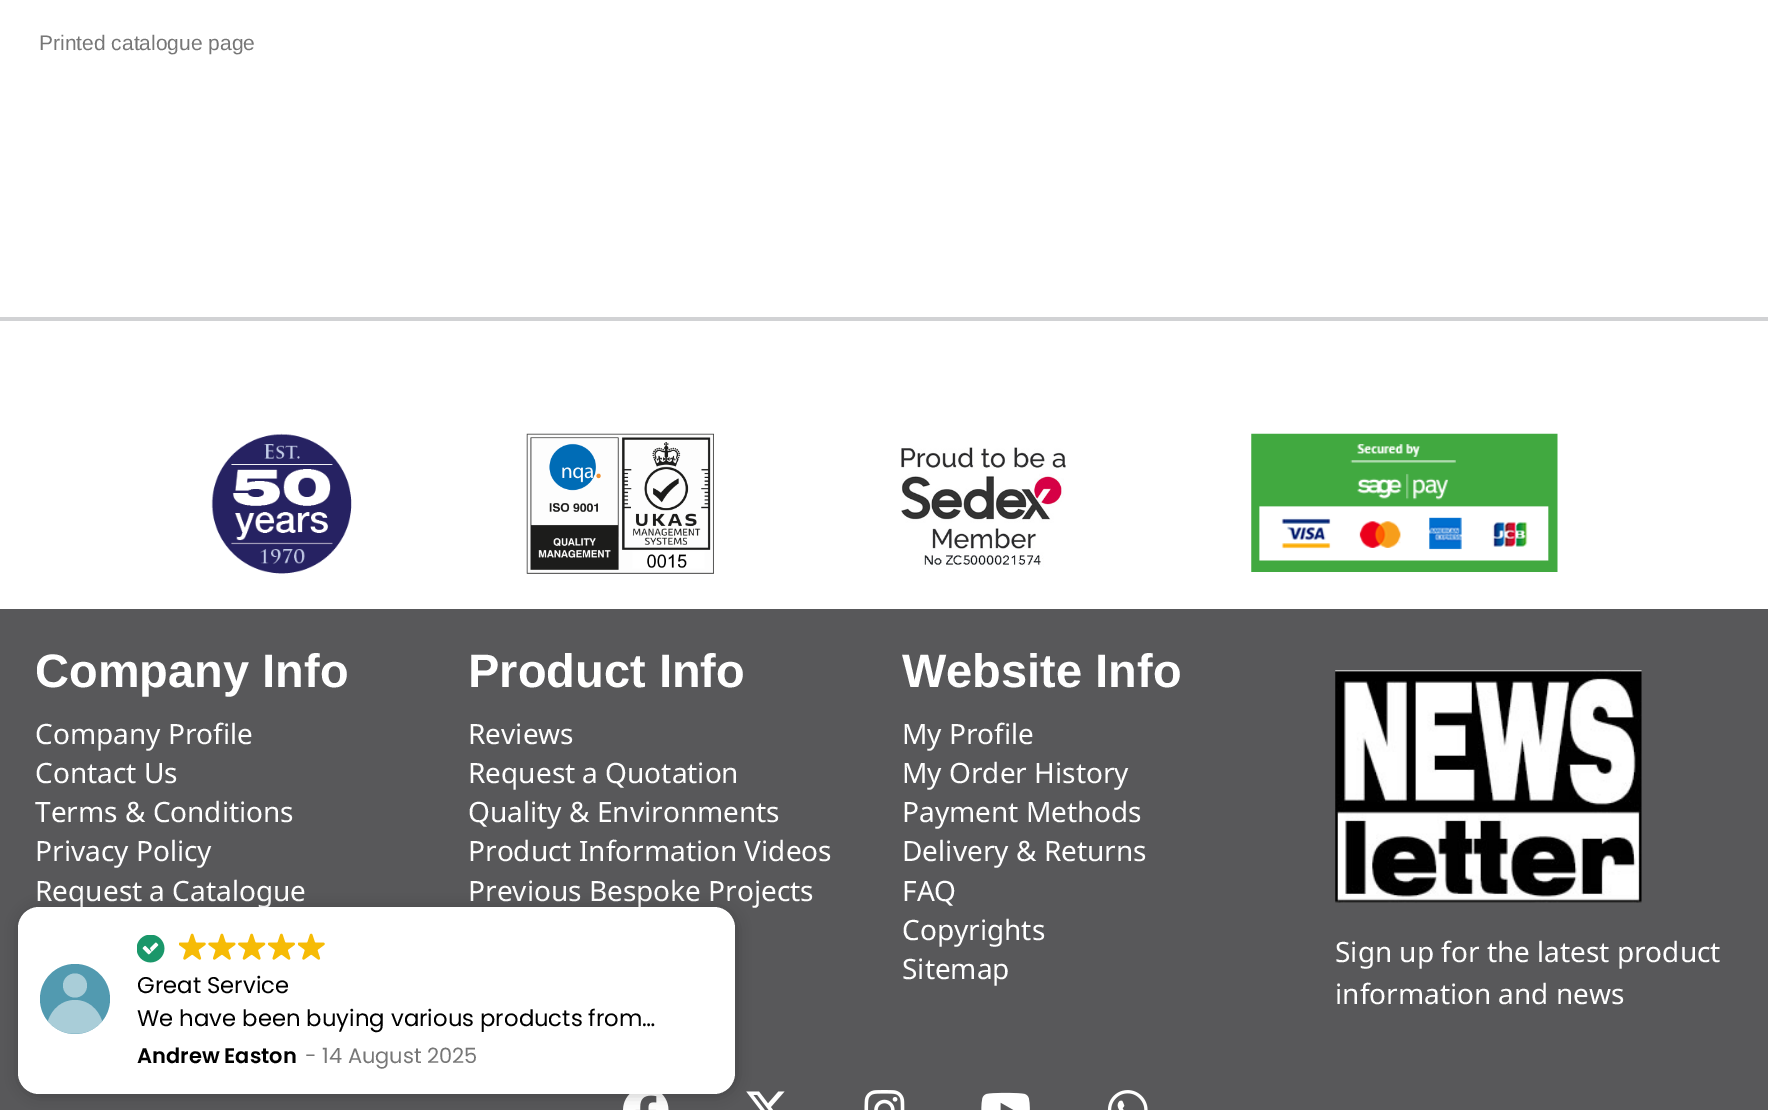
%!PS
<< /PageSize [1768 1110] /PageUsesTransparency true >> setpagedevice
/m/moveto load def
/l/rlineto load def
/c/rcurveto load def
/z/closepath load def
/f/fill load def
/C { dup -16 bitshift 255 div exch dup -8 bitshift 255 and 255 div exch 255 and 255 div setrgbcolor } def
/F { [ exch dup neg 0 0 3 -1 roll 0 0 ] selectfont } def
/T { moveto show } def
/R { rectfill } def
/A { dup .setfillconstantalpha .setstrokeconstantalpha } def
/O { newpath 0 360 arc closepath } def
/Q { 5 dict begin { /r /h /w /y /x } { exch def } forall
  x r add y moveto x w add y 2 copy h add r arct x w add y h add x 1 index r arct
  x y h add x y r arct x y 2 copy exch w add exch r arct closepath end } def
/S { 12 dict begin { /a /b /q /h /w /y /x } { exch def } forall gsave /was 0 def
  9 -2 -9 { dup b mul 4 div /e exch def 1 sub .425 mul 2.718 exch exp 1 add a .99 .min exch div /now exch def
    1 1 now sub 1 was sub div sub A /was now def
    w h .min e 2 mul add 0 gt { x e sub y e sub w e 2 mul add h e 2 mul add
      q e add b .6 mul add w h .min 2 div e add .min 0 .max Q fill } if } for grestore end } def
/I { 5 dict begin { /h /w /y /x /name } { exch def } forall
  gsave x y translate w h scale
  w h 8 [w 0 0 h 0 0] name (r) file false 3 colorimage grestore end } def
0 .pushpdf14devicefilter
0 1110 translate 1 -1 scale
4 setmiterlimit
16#FFFFFF C
0 0 1768 1110 R
/LiberationSans-Regular 21 F
16#777777 C
(Printed catalogue page) 39 50 T
16#D1D2D4 C
0 317 1768 4 R
16#58585A C
0 609 1768 501 R
(1.rgb) 211 433 141 141 I
(2.rgb) 526 433 188 141 I
(3.rgb) 901 447 165 120 I
(4.rgb) 1251 433 307 139 I
/LiberationSans-Bold 47 F
16#FFFFFF C
(Company Info) 35 687 T
/NotoSans-Regular 28 F
(Company Profile) 35 744 T
(Contact Us) 35 783 T
(Terms & Conditions) 35 822 T
(Privacy Policy) 35 861 T
(Request a Catalogue) 35 901 T
/LiberationSans-Bold 47 F
(Product Info) 468 687 T
/NotoSans-Regular 28 F
(Reviews) 468 744 T
(Request a Quotation) 468 783 T
(Quality & Environments) 468 822 T
(Product Information Videos) 468 861 T
(Previous Bespoke Projects) 468 901 T
/LiberationSans-Bold 47 F
(Website Info) 902 687 T
/NotoSans-Regular 28 F
(My Profile) 902 744 T
(My Order History) 902 783 T
(Payment Methods) 902 822 T
(Delivery & Returns) 902 861 T
(FAQ) 902 901 T
(Copyrights) 902 940 T
(Sitemap) 902 979 T
(5.rgb) 1335 670 307 233 I
(Sign up for the latest product) 1335 962 T
(information and news) 1335 1004 T
(6.rgb) 623 1094 46 16 I
(7.rgb) 746 1091 39 19 I
(8.rgb) 864 1090 41 20 I
(9.rgb) 981 1092 49 18 I
(10.rgb) 1107 1090 41 20 I
16#000000 C
19 908 718 188 21 7 .2 S
16#FFFFFF C
18 907 717 187 21 Q f
16#565658 C
727.5 900.5 m 12.5 12.5 l -1 1 l -12.5 -12 l z f
16#529AB0 C
75 999 35 O f
16#A9CDD8 C
75 985.5 12 O f
0.5 A
16#FFFFFF C
75 1000 m 13 0 23 9 27 21 c -13 17 -41 17 -54 0 c 4 -12 14 -21 27 -21 c z f
1 A
(11.rgb) 137 935 28 28 I
(12.rgb) 179 933 27 27 I
(13.rgb) 208 933 28 27 I
(14.rgb) 238 933 28 27 I
(15.rgb) 268 933 27 27 I
(12.rgb) 298 933 27 27 I
/Poppins-Regular 22.75 F
16#000000 C
(Great Service) 137 993 T
(We have been buying various products from…) 137 1026 T
/Poppins-SemiBold 21 F
(Andrew Easton) 137 1063 T
/Poppins-Regular 21 F
16#777777 C
(- 14 August 2025) 305 1063 T
.poppdf14devicefilter showpage
